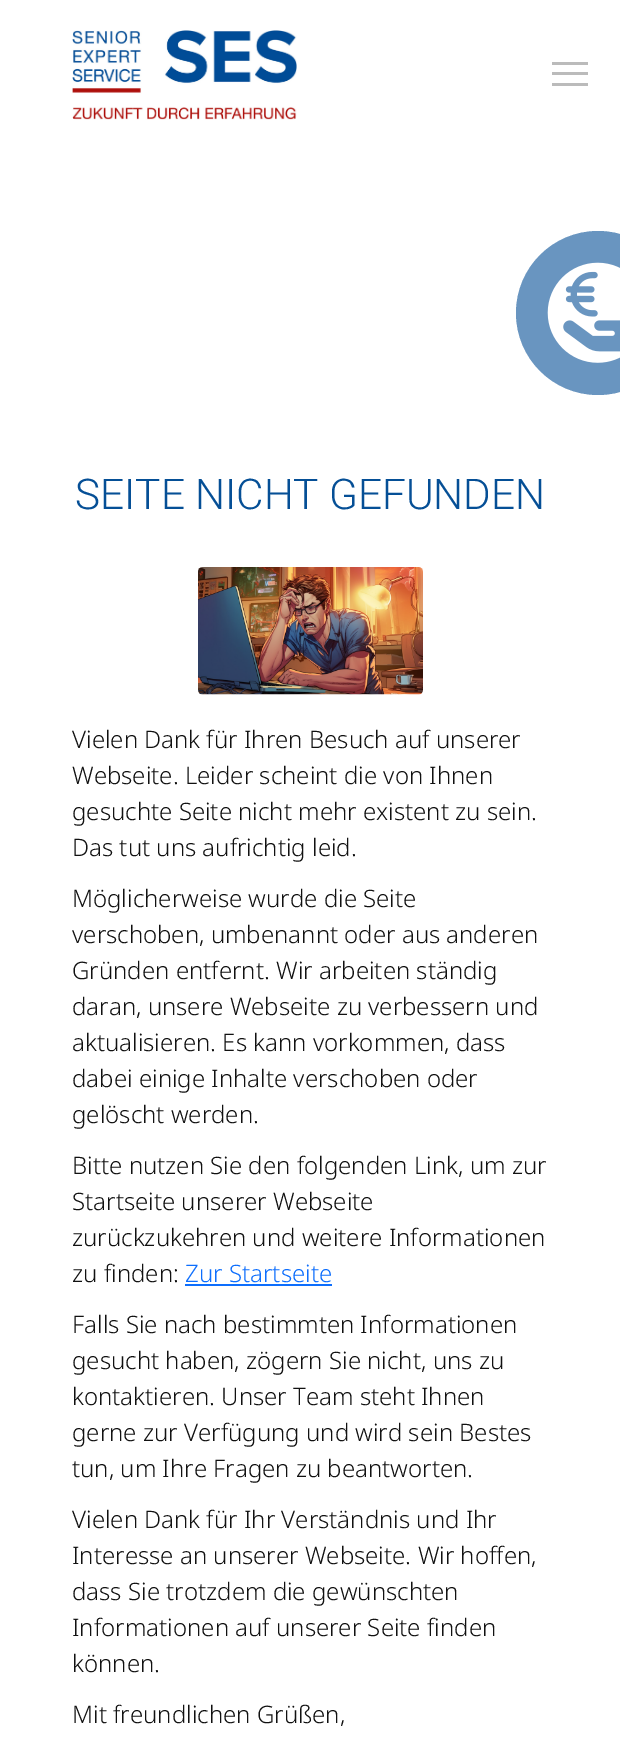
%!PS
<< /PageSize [620 1763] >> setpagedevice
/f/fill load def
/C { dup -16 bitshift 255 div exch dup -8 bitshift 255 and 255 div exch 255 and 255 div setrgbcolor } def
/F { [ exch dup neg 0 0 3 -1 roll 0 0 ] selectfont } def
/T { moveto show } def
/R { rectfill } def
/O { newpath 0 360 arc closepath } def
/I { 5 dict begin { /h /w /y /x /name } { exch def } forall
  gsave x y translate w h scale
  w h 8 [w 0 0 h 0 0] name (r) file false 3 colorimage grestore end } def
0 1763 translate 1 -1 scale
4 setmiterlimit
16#FFFFFF C
0 0 620 1763 R
(1.rgb) 72 30 225 90 I
16#BBBBBB C
552 72 36 3 R
552 62 36 3 R
552 83 36 3 R
16#6995C0 C
598 313 82 O f
(2.rgb) 547 262 73 101 I
/Roboto-Light 42.25 F
16#054F96 C
(SEITE NICHT GEFUNDEN) 75 509 T
(3.rgb) 198 567 225 128 I
/NotoSans-Light 24 F
16#111111 C
(Vielen Dank für Ihren Besuch auf unserer) 72 748 T
(Webseite. Leider scheint die von Ihnen) 72 784 T
(gesuchte Seite nicht mehr existent zu sein.) 72 820 T
(Das tut uns aufrichtig leid.) 72 856 T
(Möglicherweise wurde die Seite) 72 907 T
(verschoben, umbenannt oder aus anderen) 72 943 T
(Gründen entfernt. Wir arbeiten ständig) 72 979 T
(daran, unsere Webseite zu verbessern und) 72 1015 T
(aktualisieren. Es kann vorkommen, dass) 72 1051 T
(dabei einige Inhalte verschoben oder) 72 1087 T
(gelöscht werden.) 72 1123 T
(Bitte nutzen Sie den folgenden Link, um zur) 72 1174 T
(Startseite unserer Webseite) 72 1210 T
(zurückzukehren und weitere Informationen) 72 1246 T
(zu finden:) 72 1282 T
16#0D6EFD C
(Zur Startseite) 185 1282 T
185 1284 147 2 R
16#111111 C
(Falls Sie nach bestimmten Informationen) 72 1333 T
(gesucht haben, zögern Sie nicht, uns zu) 72 1369 T
(kontaktieren. Unser Team steht Ihnen) 72 1405 T
(gerne zur Verfügung und wird sein Bestes) 72 1441 T
(tun, um Ihre Fragen zu beantworten.) 72 1477 T
(Vielen Dank für Ihr Verständnis und Ihr) 72 1528 T
(Interesse an unserer Webseite. Wir hoffen,) 72 1564 T
(dass Sie trotzdem die gewünschten) 72 1600 T
(Informationen auf unserer Seite finden) 72 1636 T
(können.) 72 1672 T
(Mit freundlichen Grüßen,) 72 1723 T
showpage
